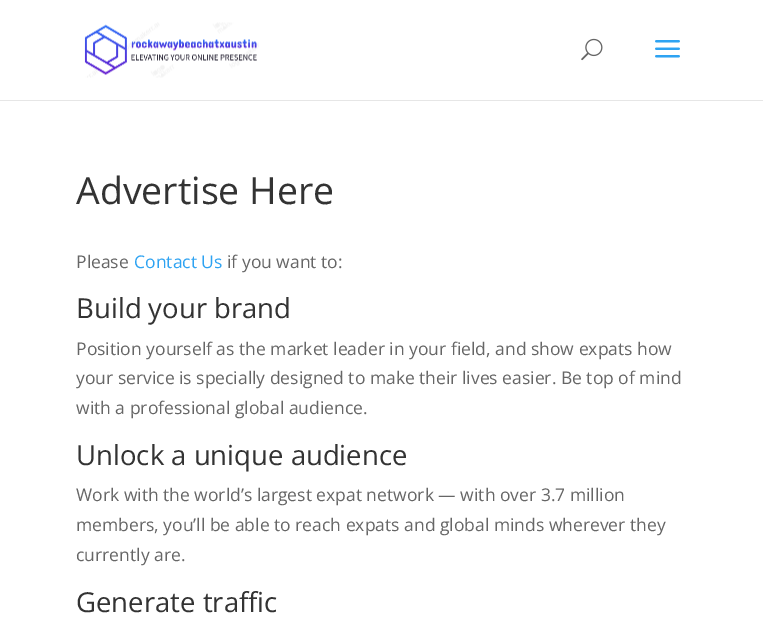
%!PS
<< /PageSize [763 634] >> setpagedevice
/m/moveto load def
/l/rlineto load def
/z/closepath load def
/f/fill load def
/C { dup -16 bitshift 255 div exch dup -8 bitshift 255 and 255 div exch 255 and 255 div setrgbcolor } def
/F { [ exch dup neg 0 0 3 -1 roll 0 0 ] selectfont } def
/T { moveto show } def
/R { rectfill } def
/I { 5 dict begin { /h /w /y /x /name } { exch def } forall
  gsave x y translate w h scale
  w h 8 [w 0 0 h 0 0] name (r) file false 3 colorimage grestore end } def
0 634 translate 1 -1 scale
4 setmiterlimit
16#FFFFFF C
0 0 763 634 R
16#E6E6E6 C
0 100 m 0 1 l 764 0 l 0 -100 l 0 99 l z f
(1.rgb) 84 22 175 56 I
(2.rgb) 581 38 22 23 I
(3.rgb) 655 40 25 18 I
/OpenSans-Regular 37.5 F
16#333333 C
(Advertise Here) 76 204 T
/OpenSans-Regular 17.5 F
16#666666 C
(Please) 76 268 T
16#2EA3F2 C
(Contact Us) 134 268 T
16#666666 C
(if you want to:) 227 268 T
/OpenSans-Regular 27.5 F
16#333333 C
(Build your brand) 76 318 T
/OpenSans-Regular 17.5 F
16#666666 C
(Position yourself as the market leader in your field, and show expats how) 76 355 T
(your service is specially designed to make their lives easier. Be top of mind) 76 384 T
(with a professional global audience.) 76 414 T
/OpenSans-Regular 27.5 F
16#333333 C
(Unlock a unique audience) 76 465 T
/OpenSans-Regular 17.5 F
16#666666 C
(Work with the world’s largest expat network — with over 3.7 million) 76 501 T
(members, you’ll be able to reach expats and global minds wherever they) 76 531 T
(currently are.) 76 561 T
/OpenSans-Regular 27.5 F
16#333333 C
(Generate traffic) 76 612 T
showpage
